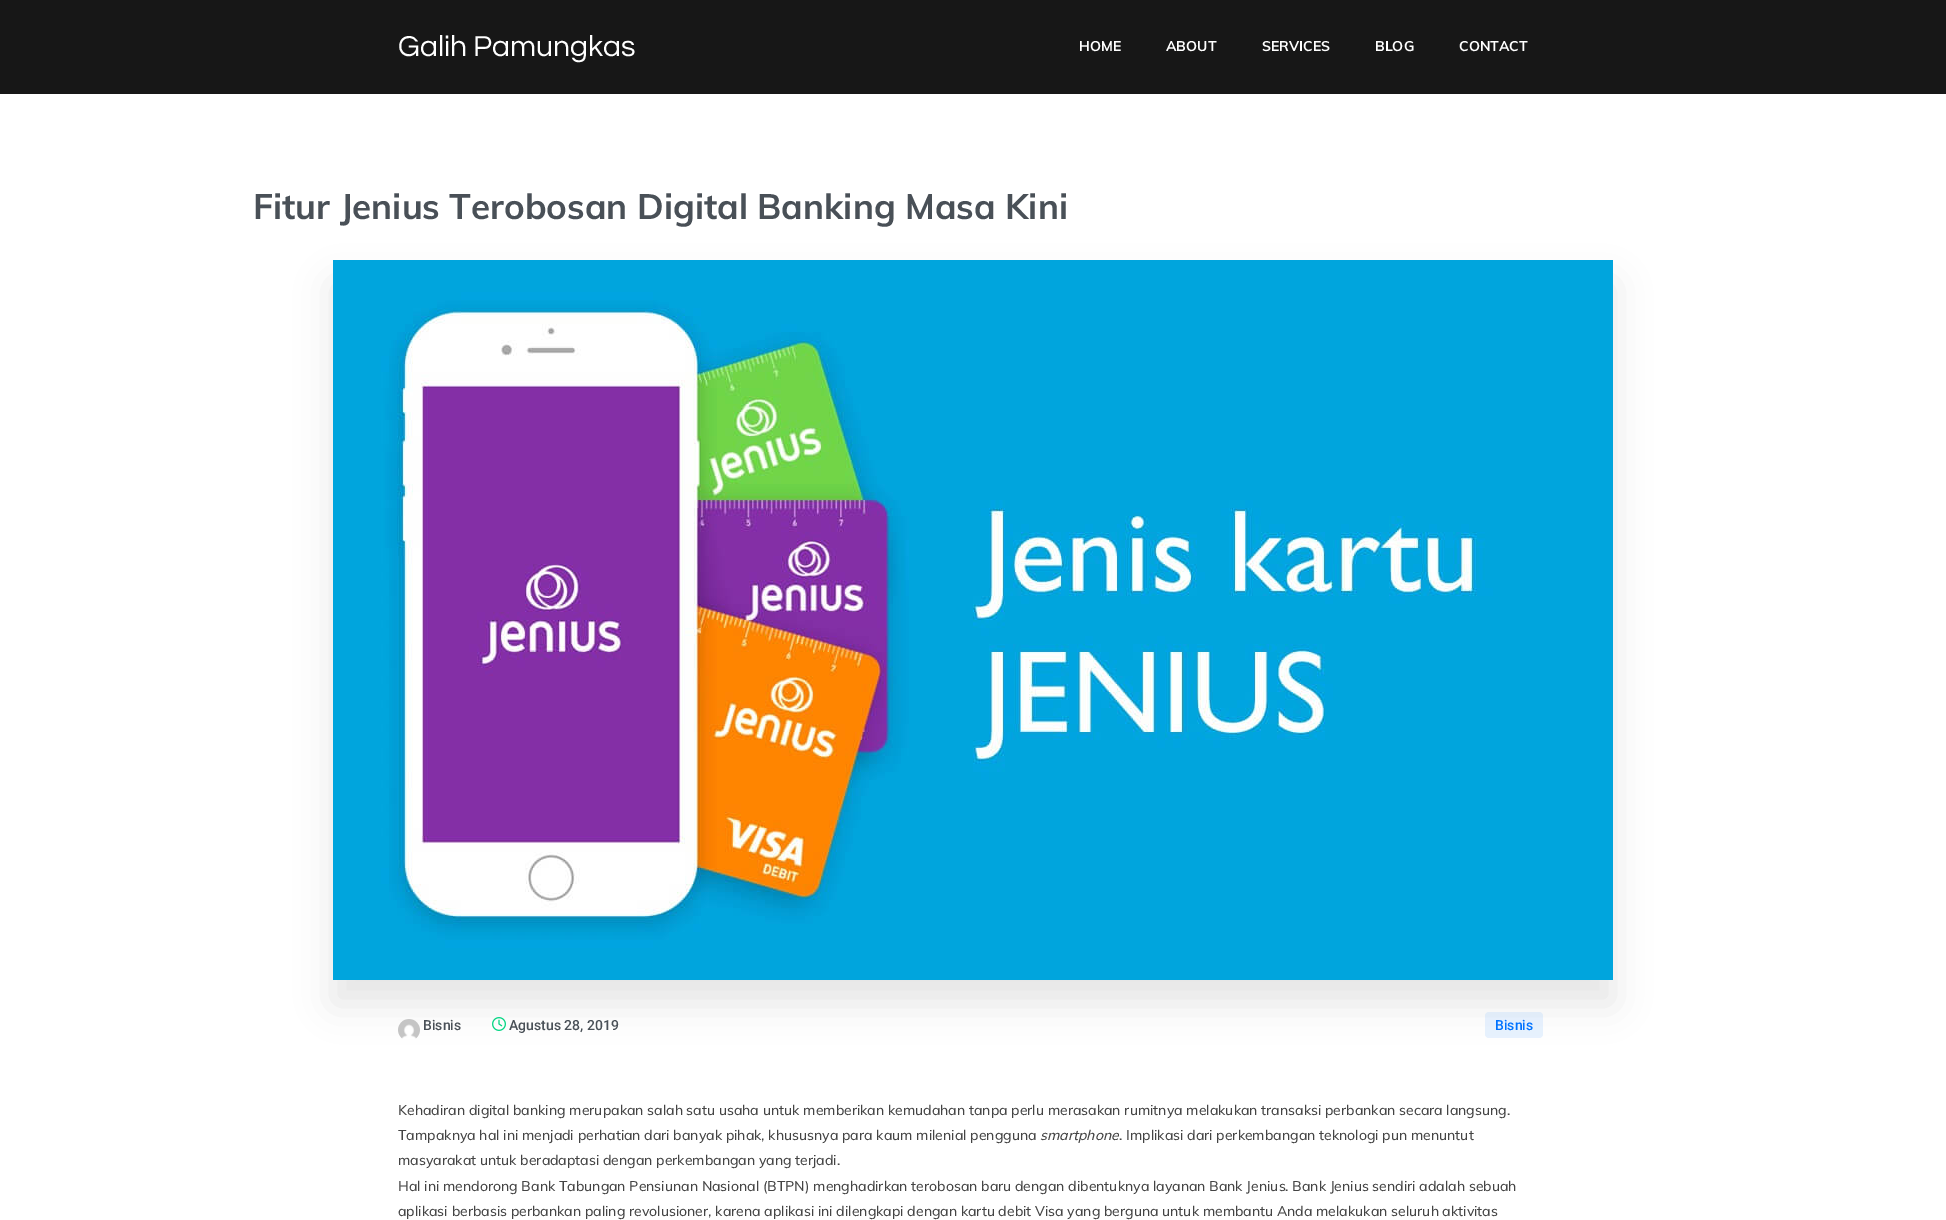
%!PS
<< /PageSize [1946 1220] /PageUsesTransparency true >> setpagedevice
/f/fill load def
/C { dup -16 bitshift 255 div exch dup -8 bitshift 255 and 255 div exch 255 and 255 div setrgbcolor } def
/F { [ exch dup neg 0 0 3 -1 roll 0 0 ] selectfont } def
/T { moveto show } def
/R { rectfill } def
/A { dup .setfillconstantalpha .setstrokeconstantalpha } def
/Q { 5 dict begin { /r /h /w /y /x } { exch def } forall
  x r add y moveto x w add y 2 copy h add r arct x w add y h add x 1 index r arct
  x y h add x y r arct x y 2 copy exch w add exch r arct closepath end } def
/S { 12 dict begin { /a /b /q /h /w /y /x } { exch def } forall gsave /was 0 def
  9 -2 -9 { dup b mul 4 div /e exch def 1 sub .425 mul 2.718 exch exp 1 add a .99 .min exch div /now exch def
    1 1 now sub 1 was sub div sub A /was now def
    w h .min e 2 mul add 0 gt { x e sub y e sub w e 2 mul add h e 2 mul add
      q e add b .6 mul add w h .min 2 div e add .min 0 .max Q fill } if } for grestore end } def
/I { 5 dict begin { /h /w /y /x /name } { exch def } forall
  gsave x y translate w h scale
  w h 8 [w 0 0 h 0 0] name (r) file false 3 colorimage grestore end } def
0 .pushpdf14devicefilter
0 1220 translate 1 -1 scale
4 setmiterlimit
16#FFFFFF C
0 0 1946 1220 R
16#171717 C
0 0 1946 94 R
/Questrial-Regular 30 F
16#FFFFFF C
(Galih Pamungkas) 398 56 T
/Muli-Bold 14 F
(HOME) 1079 51 T
(ABOUT) 1166 51 T
(SERVICES) 1262 51 T
(BLOG) 1375 51 T
(CONTACT) 1459 51 T
/Muli-Bold 35 F
16#495057 C
(Fitur Jenius Terobosan Digital Banking Masa Kini) 253 219 T
16#000000 C
333 284 1280 720 0 18 .1 S
(1.rgb) 333 260 1280 720 I
(2.rgb) 398 1019 22 20 I
/Roboto-Medium 14 F
16#495057 C
(Bisnis) 423 1030 T
(3.rgb) 492 1017 14 14 I
(Agustus 28, 2019) 509 1030 T
0.15 A
16#66AAFF C
1485 1012 58 26 4 Q f
1 A
16#0072FF C
(Bisnis) 1495 1030 T
/Muli-Medium 14 F
16#444444 C
(Kehadiran digital banking merupakan salah satu usaha untuk memberikan kemudahan tanpa perlu merasakan rumitnya melakukan transaksi perbankan secara langsung.) 398 1115 T
(Tampaknya hal ini menjadi perhatian dari banyak pihak, khususnya para kaum milenial pengguna) 398 1140 T
/Muli-MediumItalic 14 F
(smartphone) 1040 1140 T
/Muli-Medium 14 F
(. Implikasi dari perkembangan teknologi pun menuntut) 1119 1140 T
(masyarakat untuk beradaptasi dengan perkembangan yang terjadi.) 398 1165 T
(Hal ini mendorong Bank Tabungan Pensiunan Nasional \(BTPN\) menghadirkan terobosan baru dengan dibentuknya layanan Bank Jenius. Bank Jenius sendiri adalah sebuah) 398 1191 T
(aplikasi berbasis perbankan paling revolusioner, karena aplikasi ini dilengkapi dengan kartu debit Visa yang berguna untuk membantu Anda melakukan seluruh aktivitas) 398 1216 T
.poppdf14devicefilter showpage
